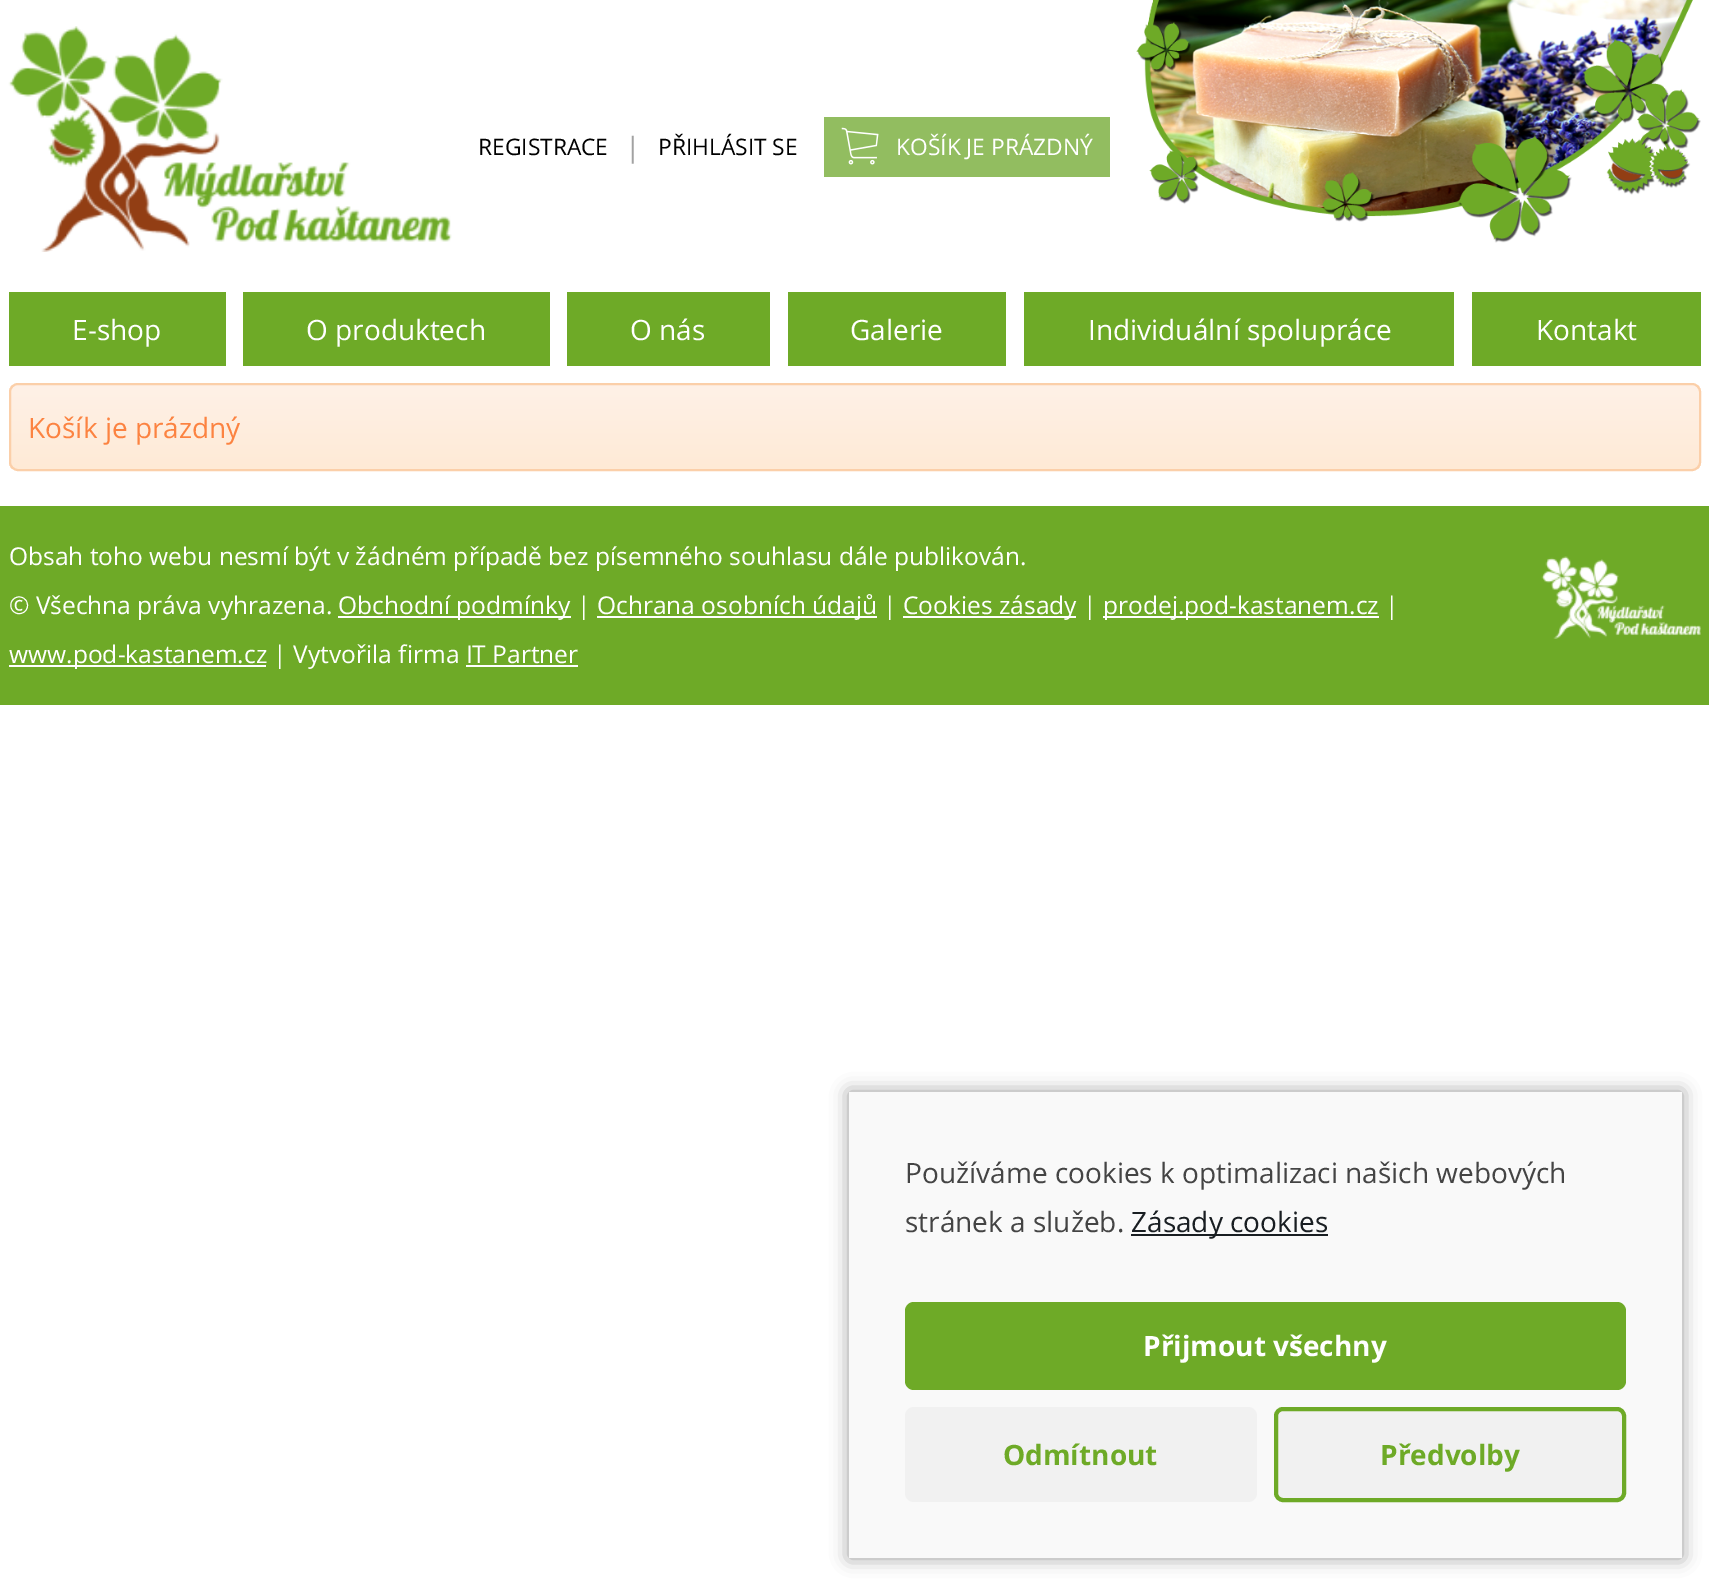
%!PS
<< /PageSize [1709 1584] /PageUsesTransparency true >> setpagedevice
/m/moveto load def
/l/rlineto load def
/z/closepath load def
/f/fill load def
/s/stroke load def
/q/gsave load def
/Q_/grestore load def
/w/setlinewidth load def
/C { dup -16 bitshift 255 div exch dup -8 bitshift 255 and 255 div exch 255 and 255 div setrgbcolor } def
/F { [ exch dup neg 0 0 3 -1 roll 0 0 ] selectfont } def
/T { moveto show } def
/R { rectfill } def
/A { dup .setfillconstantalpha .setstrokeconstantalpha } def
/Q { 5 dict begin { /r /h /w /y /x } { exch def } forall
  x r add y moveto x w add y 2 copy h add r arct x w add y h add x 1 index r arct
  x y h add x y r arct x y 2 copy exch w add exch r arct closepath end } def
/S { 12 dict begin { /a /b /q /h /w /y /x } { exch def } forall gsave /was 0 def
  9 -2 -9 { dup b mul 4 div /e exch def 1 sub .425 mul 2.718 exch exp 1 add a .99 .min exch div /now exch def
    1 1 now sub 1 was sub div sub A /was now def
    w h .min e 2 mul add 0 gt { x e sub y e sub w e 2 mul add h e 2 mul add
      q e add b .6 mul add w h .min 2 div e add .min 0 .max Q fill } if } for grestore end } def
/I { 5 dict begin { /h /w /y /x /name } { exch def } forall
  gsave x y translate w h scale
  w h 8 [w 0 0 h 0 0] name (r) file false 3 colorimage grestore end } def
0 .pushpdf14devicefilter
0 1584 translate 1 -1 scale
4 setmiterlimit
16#FFFFFF C
0 0 1709 1584 R
(1.rgb) 8 26 444 226 I
/OpenSans-Regular 22.75 F
16#000000 C
(REGISTRACE) 478 155 T
/OpenSans-Regular 28 F
16#A2A2A2 C
(|) 625 157 T
/OpenSans-Regular 22.75 F
16#000000 C
(PŘIHLÁSIT SE) 658 155 T
16#92BD60 C
824 117 286 60 R
(2.rgb) 841 127 38 38 I
16#FFFFFF C
(KOŠÍK JE PRÁZDNÝ) 896 155 T
(3.rgb) 1136 0 565 243 I
16#6EAA27 C
9 292 217 74 R
/OpenSans-Regular 28 F
16#FFFFFF C
(E-shop) 72 340 T
16#6EAA27 C
243 292 307 74 R
16#FFFFFF C
(O produktech) 306 340 T
16#6EAA27 C
567 292 203 74 R
16#FFFFFF C
(O nás) 630 340 T
16#6EAA27 C
788 292 218 74 R
16#FFFFFF C
(Galerie) 850 340 T
16#6EAA27 C
1024 292 430 74 R
16#FFFFFF C
(Individuální spolupráce) 1088 340 T
16#6EAA27 C
1472 292 229 74 R
16#FFFFFF C
(Kontakt) 1536 340 T
q
9 383 1692 88 9 Q clip newpath
q 9 385 m 1692 0 l 0 84 l -1692 0 l z clip newpath
<< /ShadingType 2 /ColorSpace /DeviceRGB /Coords [855 385 855 469] /Extend [true true] /Function << /FunctionType 2 /Domain [0 1] /C0 [1 .945 .906] /C1 [.996 .918 .839] /N 1 >> >> shfill Q_
Q_
16#FBCFA9 C
2 w
10 384 1690 86 8 Q s
16#FC8341 C
(Košík je prázdný) 28 438 T
16#6EAA27 C
0 506 1709 199 R
/OpenSans-Regular 24.5 F
16#FFFFFF C
(Obsah toho webu nesmí být v žádném případě bez písemného souhlasu dále publikován.) 9 565 T
(© Všechna práva vyhrazena.) 9 614 T
338 616 233 2 R
(Obchodní podmínky |) 338 614 T
597 616 280 2 R
(Ochrana osobních údajů |) 597 614 T
903 616 173 2 R
(Cookies zásady |) 903 614 T
1103 616 276 2 R
(prodej.pod-kastanem.cz |) 1103 614 T
9 665 257 2 R
(www.pod-kastanem.cz | Vytvořila firma IT Partner) 9 663 T
466 665 112 2 R
(4.rgb) 1541 556 160 83 I
16#000000 C
849 1092 833 466 0 9 .4 S
16#F9F9F9 C
849 1092 833 466 R
/OpenSans-Regular 28 F
16#444444 C
(Používáme cookies k optimalizaci našich webových) 905 1183 T
(stránek a služeb.) 905 1232 T
16#191E22 C
1131 1234 197 2 R
(Zásady cookies) 1131 1232 T
16#6EAA27 C
905 1302 721 88 9 Q f
/OpenSans-Bold 28 F
16#FFFFFF C
(Přijmout všechny) 1143 1356 T
16#F1F1F1 C
905 1407 352 95 9 Q f
16#6EAA27 C
(Odmítnout) 1003 1465 T
16#F1F1F1 C
1276 1409 348 91 7 Q q f Q_
16#6EAA27 C
4 w
s
(Předvolby) 1380 1465 T
.poppdf14devicefilter showpage
